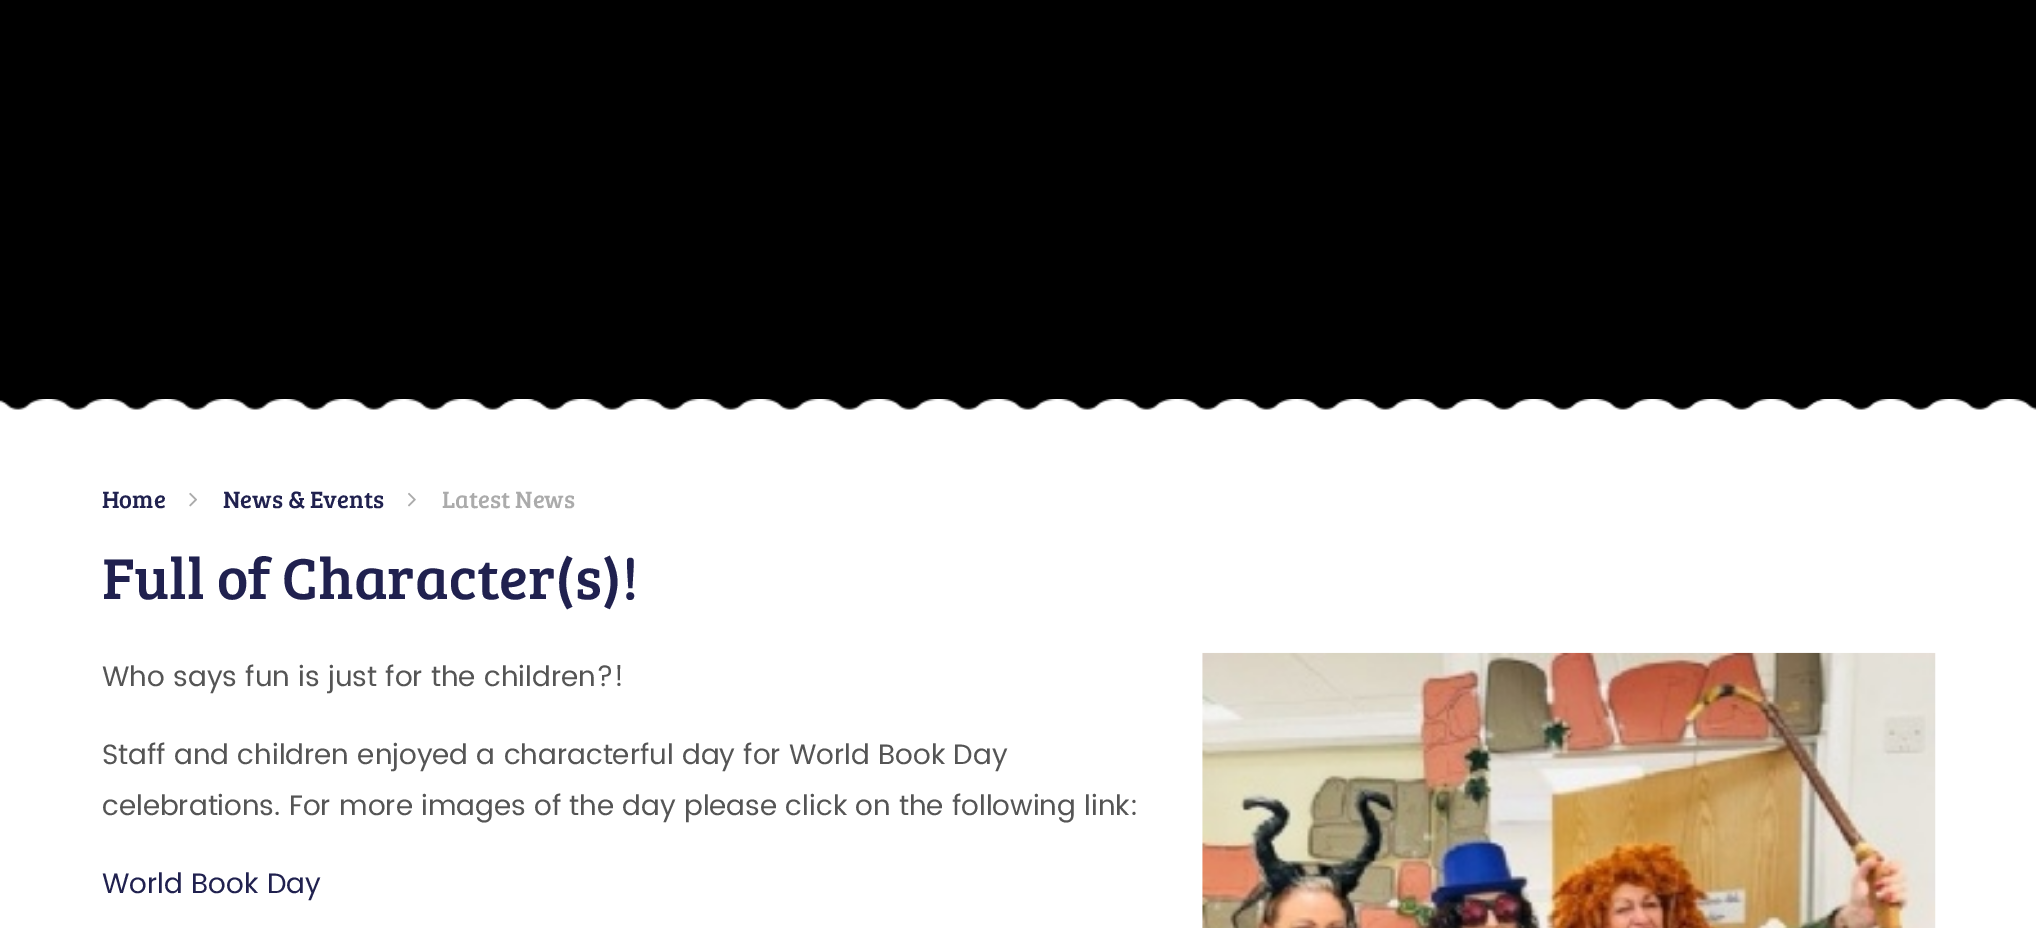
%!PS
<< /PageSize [2036 928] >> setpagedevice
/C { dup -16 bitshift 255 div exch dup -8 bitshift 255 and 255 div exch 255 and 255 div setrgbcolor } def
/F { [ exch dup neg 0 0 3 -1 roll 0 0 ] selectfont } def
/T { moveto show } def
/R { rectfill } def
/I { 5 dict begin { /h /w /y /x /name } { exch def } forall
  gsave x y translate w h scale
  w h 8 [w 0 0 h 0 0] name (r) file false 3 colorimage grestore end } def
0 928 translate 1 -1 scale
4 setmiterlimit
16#FFFFFF C
0 0 2036 928 R
16#000000 C
0 0 2036 410 R
(1.rgb) 0 399 2036 14 I
/BreeSerif-Regular 24.5 F
16#20214F C
(Home) 102 508 T
(2.rgb) 189 492 8 15 I
(News & Events) 223 508 T
(3.rgb) 408 492 8 15 I
16#ABABAB C
(Latest News) 442 508 T
/BreeSerif-Regular 59.5 F
16#20214F C
(Full of Character\(s\)!) 102 599 T
/Poppins-Regular 28 F
16#555555 C
(Who says fun is just for the children?!) 102 686 T
(Staff and children enjoyed a characterful day for World Book Day) 102 764 T
(celebrations. For more images of the day please click on the following link:) 102 815 T
16#20214F C
(World Book Day) 102 893 T
(4.rgb) 1202 652 734 276 I
showpage
